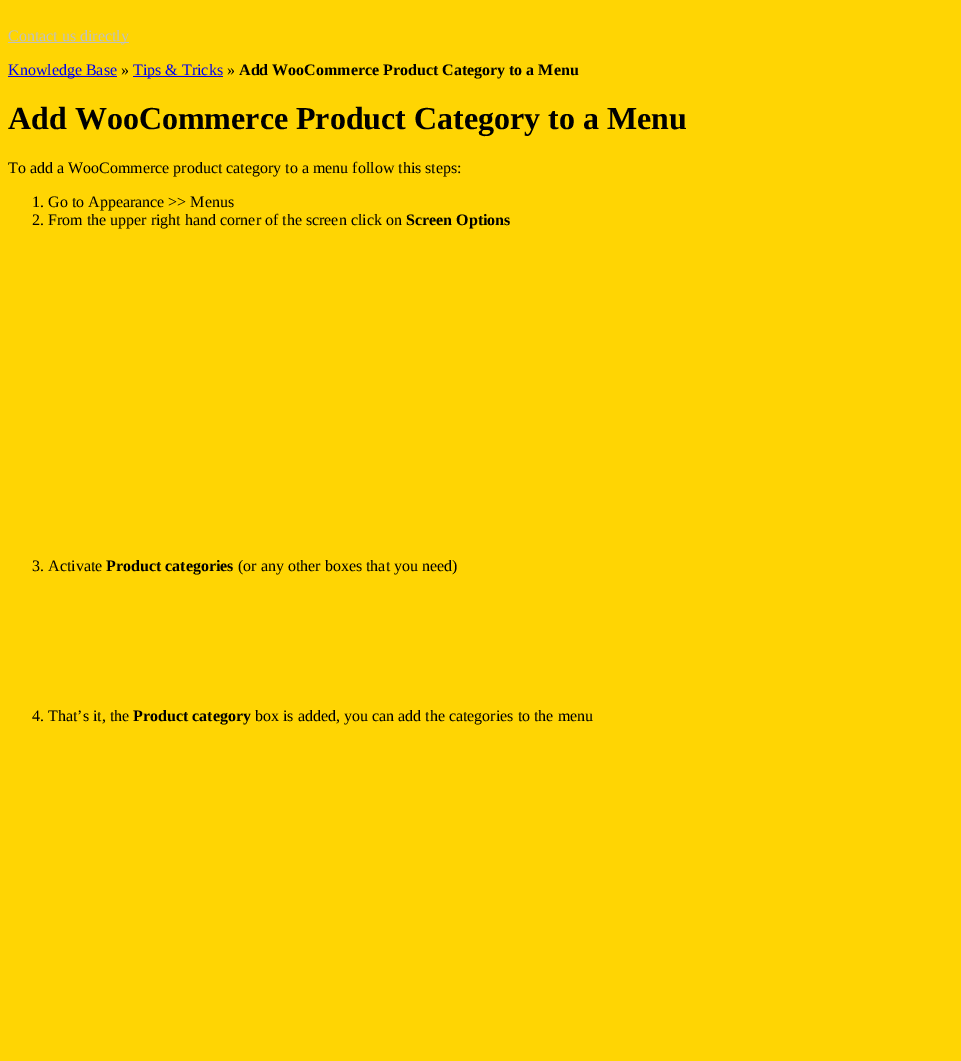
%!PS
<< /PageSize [961 1061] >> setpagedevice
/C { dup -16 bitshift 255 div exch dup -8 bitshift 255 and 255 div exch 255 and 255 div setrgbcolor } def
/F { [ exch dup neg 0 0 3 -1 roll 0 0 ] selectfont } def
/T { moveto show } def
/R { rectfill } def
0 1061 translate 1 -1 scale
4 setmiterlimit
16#FFD503 C
0 0 961 1061 R
16#C1C1C1 C
8 42 121 1 R
/LiberationSerif-Regular 16 F
(Contact us directly) 8 41 T
16#0000EE C
8 76 109 1 R
(Knowledge Base) 8 75 T
16#000000 C
(») 121 75 T
16#0000EE C
133 76 90 1 R
(Tips & Tricks) 133 75 T
16#000000 C
(») 227 75 T
/LiberationSerif-Bold 16 F
(Add WooCommerce Product Category to a Menu) 239 75 T
/LiberationSerif-Bold 32 F
(Add WooCommerce Product Category to a Menu) 8 129 T
/LiberationSerif-Regular 16 F
(To add a WooCommerce product category to a menu follow this steps:) 8 173 T
(1. Go to Appearance >> Menus) 32 207 T
(2. From the upper right hand corner of the screen click on) 32 225 T
/LiberationSerif-Bold 16 F
(Screen Options) 406 225 T
/LiberationSerif-Regular 16 F
(3. Activate) 32 571 T
/LiberationSerif-Bold 16 F
(Product categories) 106 571 T
/LiberationSerif-Regular 16 F
(\(or any other boxes that you need\)) 238 571 T
(4. That’s it, the) 32 721 T
/LiberationSerif-Bold 16 F
(Product category) 133 721 T
/LiberationSerif-Regular 16 F
(box is added, you can add the categories to the menu) 255 721 T
showpage
